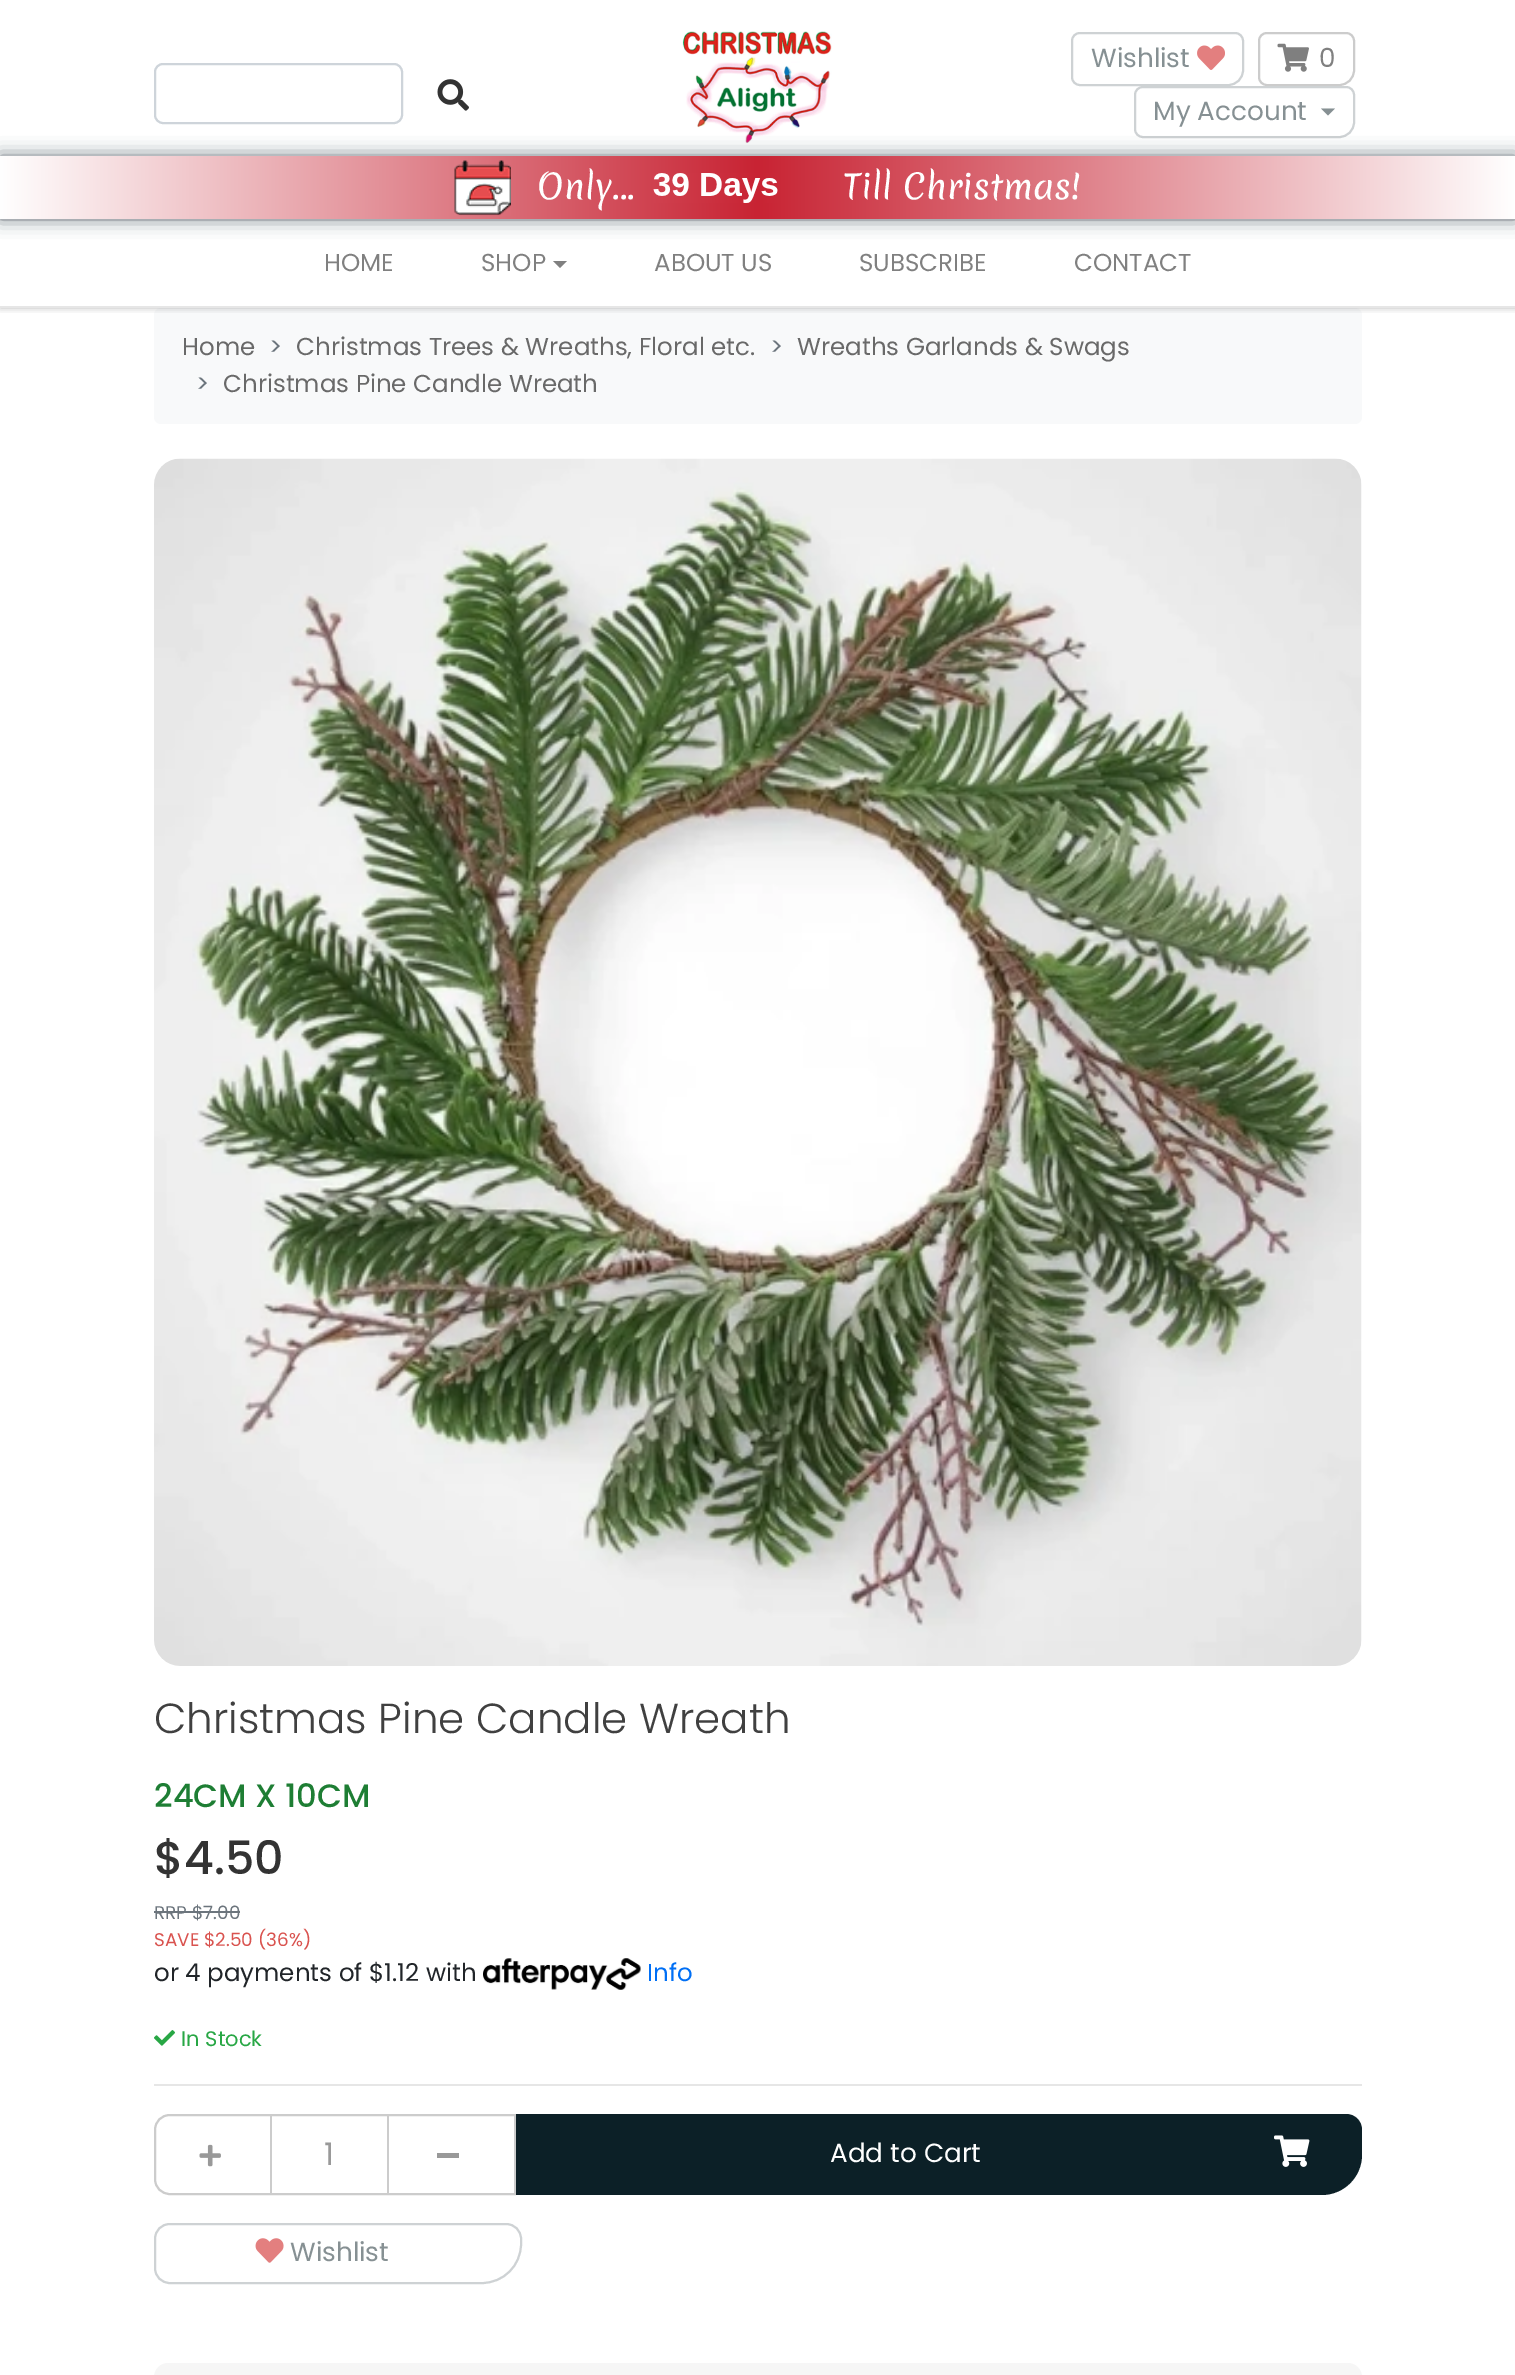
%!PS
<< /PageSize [1515 2375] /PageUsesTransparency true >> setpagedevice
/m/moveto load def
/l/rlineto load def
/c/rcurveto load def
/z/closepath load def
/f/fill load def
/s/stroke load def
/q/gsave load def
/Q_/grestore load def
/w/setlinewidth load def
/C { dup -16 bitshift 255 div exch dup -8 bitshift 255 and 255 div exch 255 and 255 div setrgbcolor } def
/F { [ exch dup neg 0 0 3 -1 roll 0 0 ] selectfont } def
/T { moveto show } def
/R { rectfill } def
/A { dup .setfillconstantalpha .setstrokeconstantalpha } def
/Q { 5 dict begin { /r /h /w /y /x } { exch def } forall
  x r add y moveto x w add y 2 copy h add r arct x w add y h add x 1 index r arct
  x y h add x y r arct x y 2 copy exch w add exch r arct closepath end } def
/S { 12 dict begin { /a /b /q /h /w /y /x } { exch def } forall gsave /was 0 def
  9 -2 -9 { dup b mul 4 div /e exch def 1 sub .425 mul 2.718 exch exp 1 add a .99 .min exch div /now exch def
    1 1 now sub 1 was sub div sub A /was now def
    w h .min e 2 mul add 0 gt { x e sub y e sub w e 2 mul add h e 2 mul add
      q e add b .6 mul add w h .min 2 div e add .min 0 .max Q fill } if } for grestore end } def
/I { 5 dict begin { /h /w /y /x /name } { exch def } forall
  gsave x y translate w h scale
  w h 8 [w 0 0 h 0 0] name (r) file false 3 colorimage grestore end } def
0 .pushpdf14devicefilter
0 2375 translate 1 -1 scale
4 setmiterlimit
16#FFFFFF C
0 0 1515 2375 R
16#CED4DA C
2 w
155 64 247 59 8 Q s
(1.rgb) 437 79 32 32 I
(2.rgb) 682 30 150 114 I
16#CED2D4 C
1080 33 m 155 0 l 4.5 0 8 3.5 8 8 c 0 29 l 0 8.5 -6.5 15 -15 15 c -148 0 l -4.5 0 -8 -3.5 -8 -8 c 0 -36 l 0 -4.5 3.5 -8 8 -8 c z s
/Poppins-Regular 26.25 F
16#869093 C
(Wishlist) 1091 67 T
(3.rgb) 1197 45 28 25 I
16#CCCCCC C
1267 33 m 79 0 l 4.5 0 8 3.5 8 8 c 0 29 l 0 8.5 -6.5 15 -15 15 c -72 0 l -4.5 0 -8 -3.5 -8 -8 c 0 -36 l 0 -4.5 3.5 -8 8 -8 c z s
(4.rgb) 1277 43 32 29 I
16#808080 C
(0) 1319 67 T
16#CED2D4 C
1143 87 m 203 0 l 4.5 0 8 3.5 8 8 c 0 27 l 0 8.5 -6.5 15 -15 15 c -196 0 l -4.5 0 -8 -3.5 -8 -8 c 0 -34 l 0 -4.5 3.5 -8 8 -8 c z s
16#869093 C
(My Account) 1153 120 T
1321 108.5 m 14 0 l -7 7 l z f
16#F8F9FA C
154 308 1208 116 7 Q f
q
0 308 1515 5 rectclip
16#000000 C
0 219 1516 89 0 3.5 .25 S
Q_
16#E6E6E6 C
0 219 1515 2 R
16#6C757D C
0 156 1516 63 0 9 1 S
q 0 156 m 1515 0 l 0 63 l -1515 0 l z clip newpath
<< /ShadingType 2 /ColorSpace /DeviceRGB /Coords [0 187 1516 187] /Extend [true true] /Function << /FunctionType 3 /Domain [0 1] /Functions [<< /FunctionType 2 /Domain [0 1] /C0 [1 1 1] /C1 [.784 .137 .2] /N 1 >> << /FunctionType 2 /Domain [0 1] /C0 [.784 .137 .2] /C1 [1 1 1] /N 1 >>] /Bounds [.5] /Encode [0 1 0 1] >> >> shfill Q_
(5.rgb) 454 160 57 56 I
/Merienda-Regular 33.5 F
16#FFFFFF C
(Only...) 537 199 T
(6.rgb) 653 173 125 30 I
(Till Christmas!) 843 199 T
16#E6E6E6 C
0 306 1515 2 R
/Poppins-Regular 24.5 F
16#808080 C
(HOME) 324 271 T
(SHOP) 481 271 T
553 261 m 14 0 l -7 7 l z f
(ABOUT US) 654 271 T
(SUBSCRIBE) 859 271 T
(CONTACT) 1074 271 T
16#696969 C
(Home) 182 355 T
16#6C757D C
(>) 269 355 T
16#696969 C
(Christmas Trees & Wreaths, Floral etc.) 296 355 T
16#6C757D C
(>) 770 355 T
16#696969 C
(Wreaths Garlands & Swags) 797 355 T
16#6C757D C
(>) 196 392 T
16#696969 C
(Christmas Pine Candle Wreath) 223 392 T
(7.rgb) 154 458 1208 1208 I
/Poppins-Light 42 F
16#404040 C
(Christmas Pine Candle Wreath) 154 1733 T
/Poppins-Medium 32.25 F
16#1E7E34 C
(24CM X 10CM) 154 1807 T
/Poppins-Medium 46 F
16#333333 C
($4.50) 154 1874 T
/Poppins-Regular 18.4 F
16#6C757D C
(RRP $7.00) 154 1919 T
154 1911 86 2 R
16#D9534F C
(SAVE $2.50 \(36%\)) 154 1946 T
/Poppins-Regular 24.5 F
16#212529 C
(or 4 payments of $1.12 with) 154 1981 T
(8.rgb) 483 1958 158 32 I
16#006FF5 C
(Info) 647 1981 T
(9.rgb) 154 2030 21 16 I
/Poppins-Regular 21 F
16#28A745 C
(In Stock) 181 2046 T
16#E6E6E6 C
154 2084 1208 2 R
16#CCCCCC C
170 2115 m 345 0 l 0 79 l -345 0 l -8.5 0 -15 -6.5 -15 -15 c 0 -49 l 0 -8.5 6.5 -15 15 -15 c z s
(10.rgb) 199 2144 22 23 I
387 2116 2 77 R
270 2116 2 77 R
/Poppins-Regular 31 F
16#999999 C
(1) 324 2165 T
437 2153 22 5 R
16#0C2027 C
516 2114 m 830 0 l 9 0 16 7 16 16 c 0 24.5 l 0 22.5 -18 40.5 -40.5 40.5 c -805.5 0 l z f
/Poppins-Regular 26.25 F
16#FFFFFF C
(Add to Cart) 830 2162 T
(11.rgb) 1274 2135 36 32 I
16#CED2D4 C
170 2224 m 336 0 l 8.5 0 15 6.5 15 15 c 0 5 l 0 21.5 -17.5 39 -39 39 c -312 0 l -8.5 0 -15 -6.5 -15 -15 c 0 -29 l 0 -8.5 6.5 -15 15 -15 c z s
(12.rgb) 255 2238 29 25 I
16#869093 C
(Wishlist) 290 2261 T
16#F6F6F6 C
168 2363 m 1180 0 l 7.5 0 14 6.5 14 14 c 0 -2 l 0 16.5 -13.5 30 -30 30 c -1164 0 l -7.5 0 -14 -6.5 -14 -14 c 0 -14 l 0 -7.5 6.5 -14 14 -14 c z f
.poppdf14devicefilter showpage
